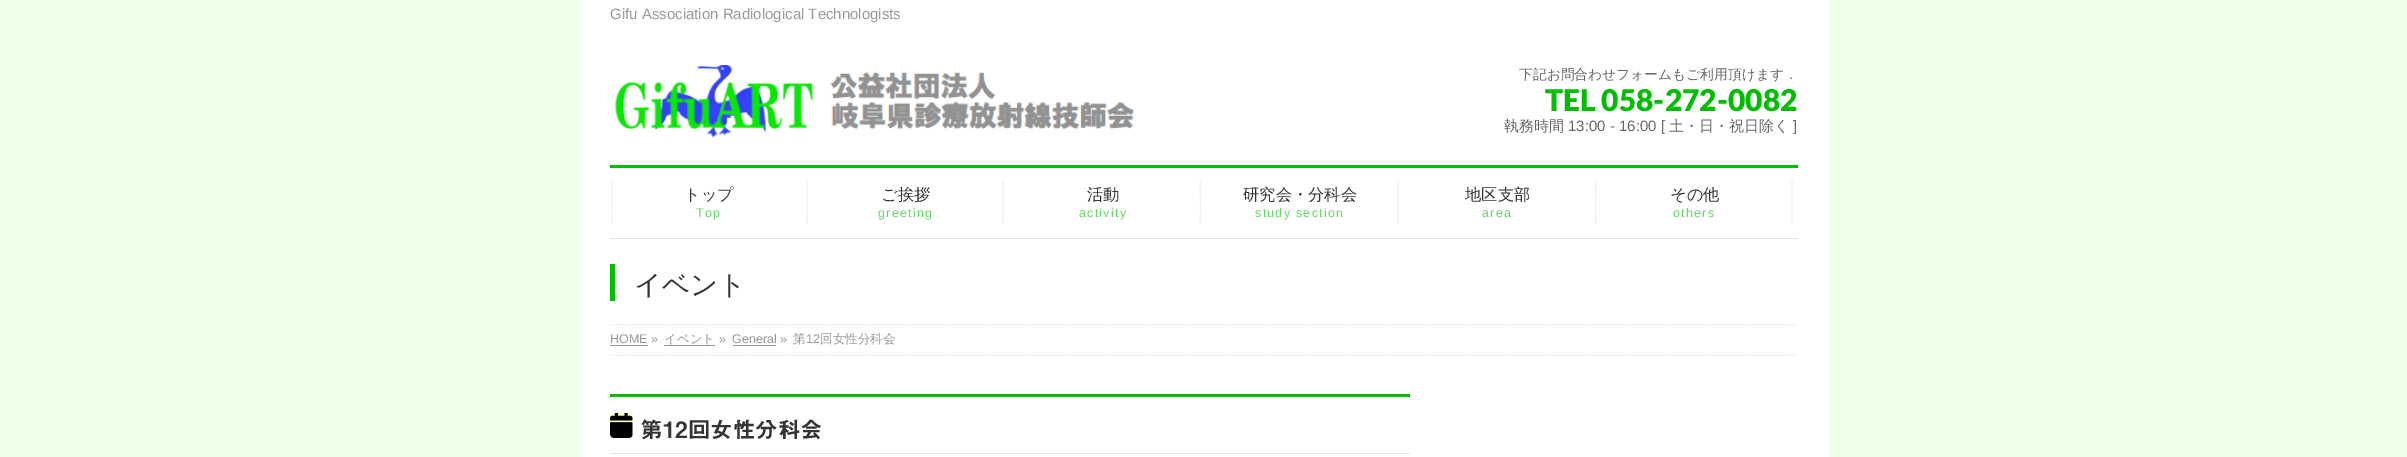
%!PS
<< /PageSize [2407 457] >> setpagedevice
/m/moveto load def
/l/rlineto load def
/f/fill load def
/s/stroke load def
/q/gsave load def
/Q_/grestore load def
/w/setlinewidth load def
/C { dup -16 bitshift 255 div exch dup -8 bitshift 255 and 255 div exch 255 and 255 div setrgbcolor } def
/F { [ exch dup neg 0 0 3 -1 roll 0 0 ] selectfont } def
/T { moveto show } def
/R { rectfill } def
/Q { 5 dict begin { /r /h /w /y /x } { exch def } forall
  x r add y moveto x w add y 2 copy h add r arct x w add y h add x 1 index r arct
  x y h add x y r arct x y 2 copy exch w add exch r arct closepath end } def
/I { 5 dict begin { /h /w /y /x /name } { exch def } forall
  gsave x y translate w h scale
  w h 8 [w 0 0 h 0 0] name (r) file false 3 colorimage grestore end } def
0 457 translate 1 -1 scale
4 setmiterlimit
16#EFFFE8 C
0 0 2407 457 R
16#FFFFFF C
579 0 1250 239 R
/LiberationSans-Regular 15 F
16#999999 C
(Gifu Association Radiological Technologists) 610 19 T
(1.rgb) 615 65 519 73 I
/WenQuanYiZenHei-Medium 13.75 F
16#666666 C
(下記お問合わせフォームもご利用頂けます．) 1519 79 T
/Lato-Black 30 F
16#00BC03 C
(TEL 058-272-0082) 1545 111 T
/WenQuanYiZenHei-Medium 15 F
16#666666 C
(執務時間) 1504 131 T
/LiberationSans-Regular 15 F
(13:00 - 16:00 [) 1568 131 T
/WenQuanYiZenHei-Medium 15 F
(土・日・祝日除く) 1669 131 T
/LiberationSans-Regular 15 F
(]) 1793 131 T
16#00BC03 C
610 165 1188 3 R
16#E5E5E5 C
610 238 1188 1 R
1.2 w
[1.25 1.25] 0 setdash
612 181 m 0 43 l s
/WenQuanYiZenHei-Medium 16.25 F
16#333333 C
(トップ) 684 200 T
/LiberationSans-Regular 12.5 F
16#66D768 C
696 217 m 1.25 0 (Top) ashow
16#E5E5E5 C
807 181 m 0 43 l s
/WenQuanYiZenHei-Medium 16.25 F
16#333333 C
(ご挨拶) 881 200 T
/LiberationSans-Regular 12.5 F
16#66D768 C
878 217 m 1.25 0 (greeting) ashow
16#E5E5E5 C
1003 181 m 0 43 l s
/WenQuanYiZenHei-Medium 16.25 F
16#333333 C
(活動) 1087 200 T
/LiberationSans-Regular 12.5 F
16#66D768 C
1079 217 m 1.25 0 (activity) ashow
16#E5E5E5 C
1200.5 181 m 0 43 l s
/WenQuanYiZenHei-Medium 16.25 F
16#333333 C
(研究会・分科会) 1243 200 T
/LiberationSans-Regular 12.5 F
16#66D768 C
1255 217 m 1.25 0 (study section) ashow
16#E5E5E5 C
1398 181 m 0 43 l s
/WenQuanYiZenHei-Medium 16.25 F
16#333333 C
(地区支部) 1465 200 T
/LiberationSans-Regular 12.5 F
16#66D768 C
1482 217 m 1.25 0 (area) ashow
16#E5E5E5 C
1595.5 181 m 0 43 l s
/WenQuanYiZenHei-Medium 16.25 F
16#333333 C
(その他) 1670 200 T
/LiberationSans-Regular 12.5 F
16#66D768 C
1673 217 m 1.25 0 (others) ashow
16#E5E5E5 C
1792 181 m 0 43 l s
16#FFFFFF C
579 239 1250 85 R
16#00BC03 C
610 264 5 37 R
/WenQuanYiZenHei-Medium 27.5 F
16#333333 C
(イベント) 634 294 T
16#FFFFFF C
579 324 1250 133 R
q
579 324 1250 32 rectclip
16#E5E5E5 C
610 324.5 m 1187.5 0 l s
610 355.5 m 1187.5 0 l s
Q_
/LiberationSans-Regular 12.5 F
16#999999 C
(HOME ») 610 343 T
610 345 38 1 R
/WenQuanYiZenHei-Medium 12.5 F
(イベント) 664 343 T
664 345 51 1 R
/LiberationSans-Regular 12.5 F
(») 719 343 T
(General ») 732 343 T
733 345 43 1 R
/WenQuanYiZenHei-Medium 12.5 F
(第) 793 343 T
/LiberationSans-Regular 12.5 F
(12) 806 343 T
/WenQuanYiZenHei-Medium 12.5 F
(回女性分科会) 820 343 T
16#00BC03 C
610 394 800 3 R
16#E5E5E5 C
610 453 800 1 R
16#FFFFCC C
610 413 23 25 4 Q f
(2.rgb) 610 413 23 25 I
/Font-SemiBold 22.5 F
16#333333 C
(第12回女性分科会) 640 438 T
showpage
